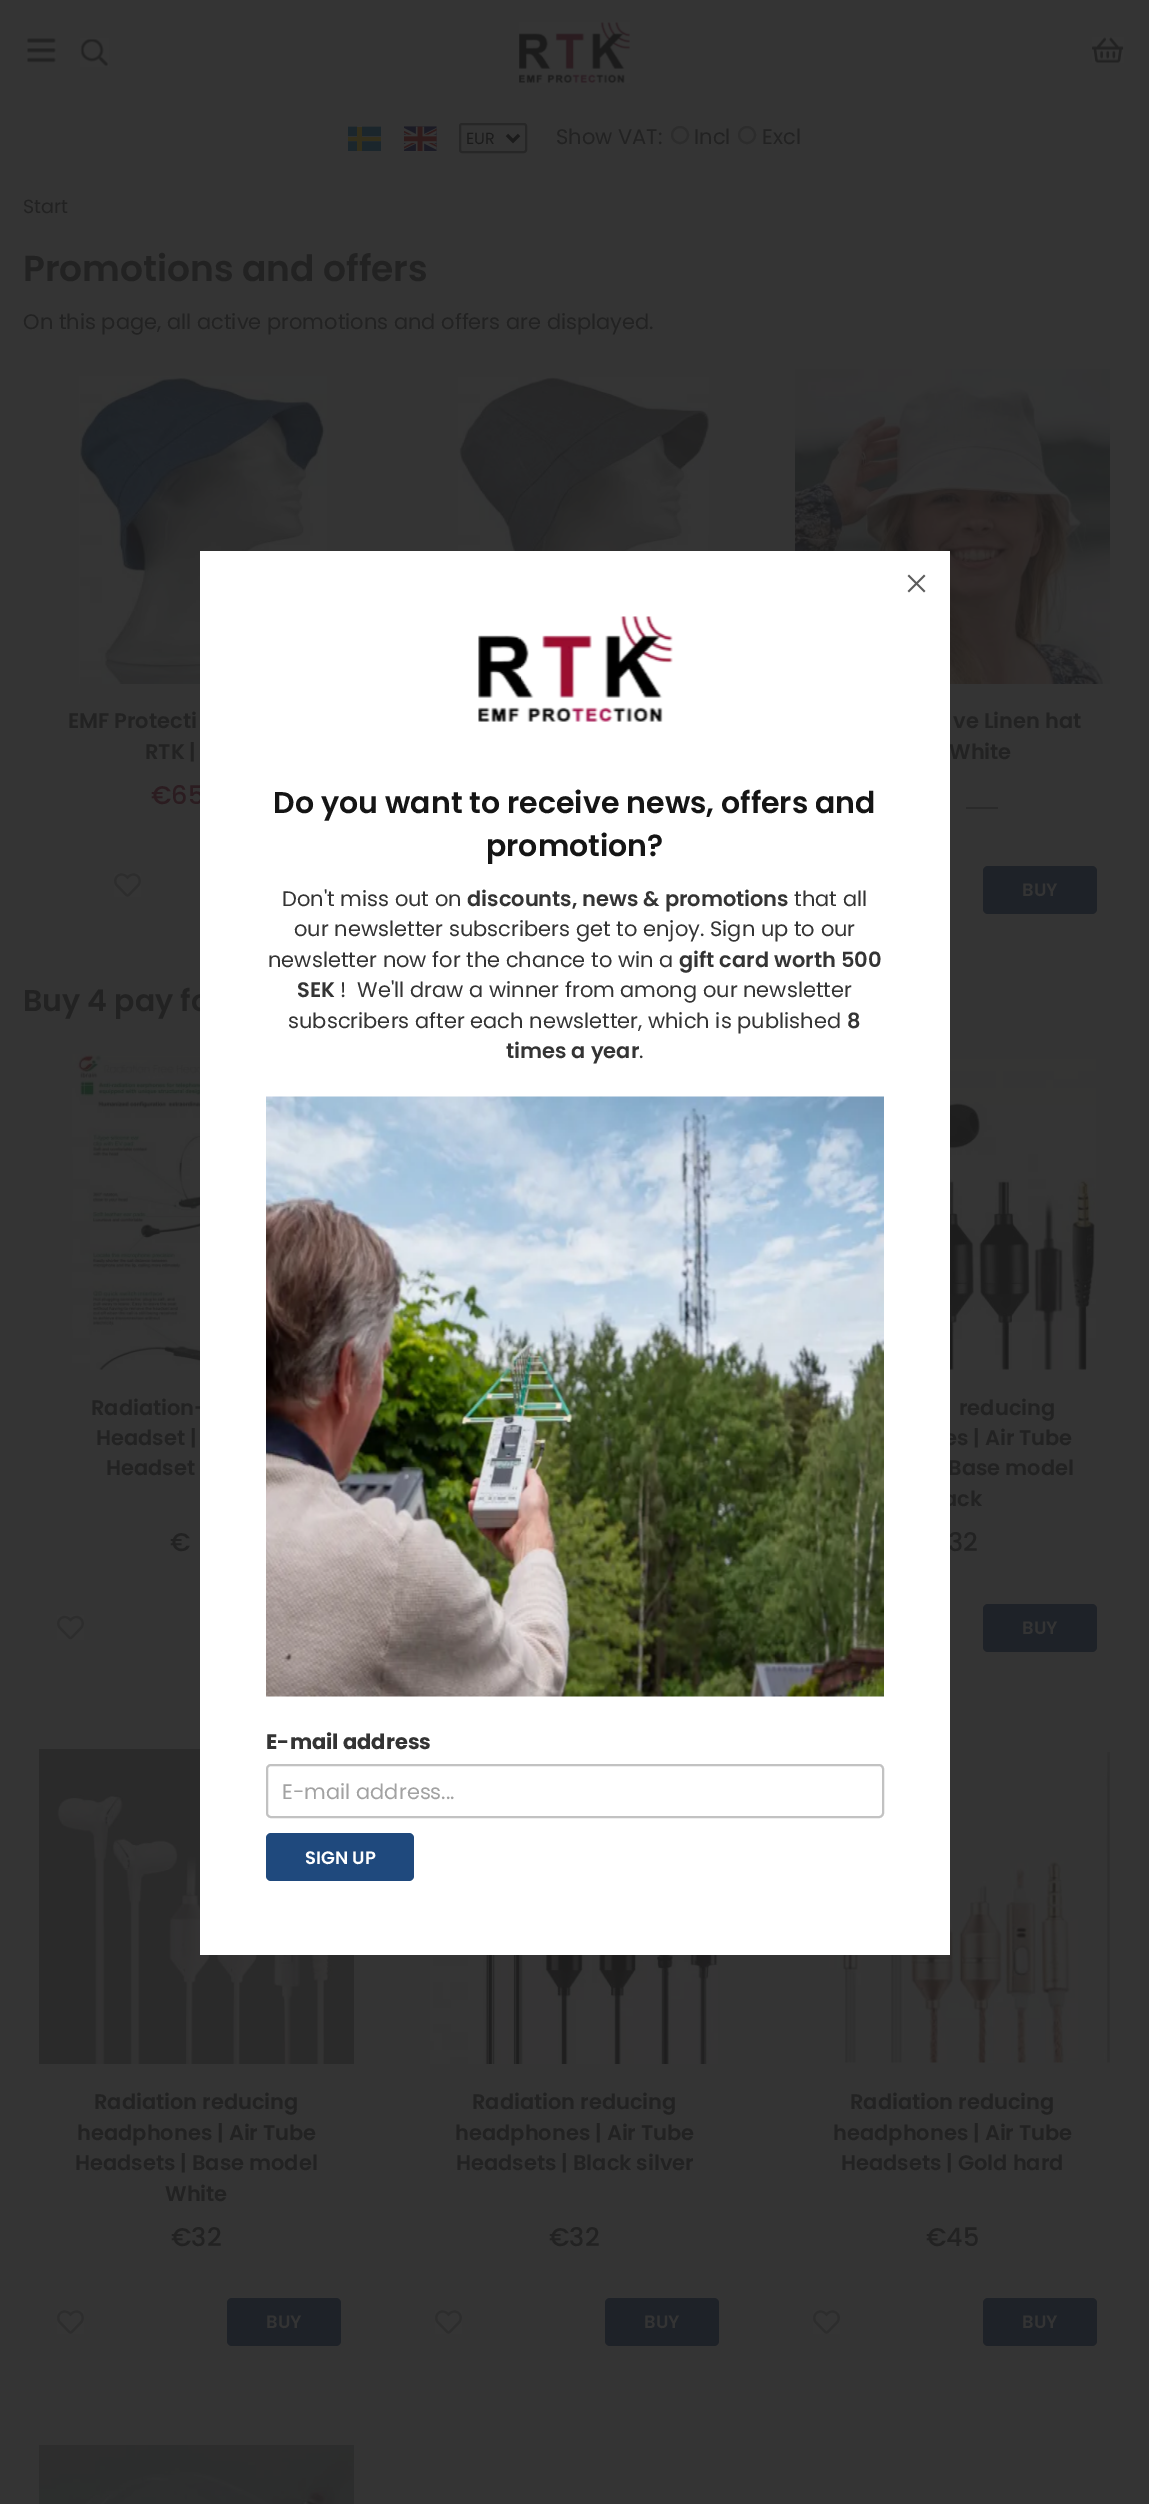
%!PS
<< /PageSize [1149 2504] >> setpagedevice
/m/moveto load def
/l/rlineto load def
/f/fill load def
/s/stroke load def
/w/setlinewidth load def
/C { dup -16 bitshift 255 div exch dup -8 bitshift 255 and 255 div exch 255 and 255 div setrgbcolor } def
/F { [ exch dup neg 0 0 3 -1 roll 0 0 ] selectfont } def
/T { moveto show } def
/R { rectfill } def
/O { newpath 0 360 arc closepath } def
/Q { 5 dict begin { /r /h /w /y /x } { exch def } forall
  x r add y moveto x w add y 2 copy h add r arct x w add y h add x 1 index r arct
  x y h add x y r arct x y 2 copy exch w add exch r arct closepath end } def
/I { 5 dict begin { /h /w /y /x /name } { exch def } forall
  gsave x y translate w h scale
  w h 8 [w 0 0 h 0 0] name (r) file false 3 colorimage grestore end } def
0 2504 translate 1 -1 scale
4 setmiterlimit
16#343434 C
0 0 1149 2504 R
(1.rgb) 27 38 29 25 I
(2.rgb) 80 38 29 29 I
(3.rgb) 519 22 111 61 I
(4.rgb) 1092 37 32 26 I
(5.rgb) 348 126 33 25 I
(6.rgb) 404 126 33 26 I
16#272727 C
2 w
460 124 66 28 2 Q s
16#1B1B1B C
3 w
507 135 m 6 6 l 6 -6 l s
/Poppins-Regular 16 F
(EUR) 466 144 T
/Poppins-Regular 21 F
16#222222 C
(Show VAT:) 556 144 T
16#2C2C2C C
2 w
680 135 8 O s
16#222222 C
(Incl) 694 144 T
16#2C2C2C C
747 135 8 O s
16#222222 C
(Excl) 762 144 T
/Poppins-Regular 19 F
(Start) 23 213 T
/Poppins-SemiBold 36 F
(Promotions and offers) 23 281 T
/Poppins-Regular 21 F
(On this page, all active promotions and offers are displayed.) 23 329 T
(7.rgb) 458 377 251 174 I
(8.rgb) 79 376 248 308 I
/Poppins-SemiBold 21 F
(EMF Protecti) 68 728 T
(RTK |) 145 759 T
/Poppins-Medium 25.5 F
16#2B1C20 C
(€65) 151 804 T
(9.rgb) 114 873 27 24 I
(10.rgb) 795 369 315 315 I
/Poppins-SemiBold 21 F
16#222222 C
(ve Linen hat) 953 728 T
(White) 949 759 T
16#2A2A2A C
966 807 32 2 R
16#1E2228 C
983 866 114 48 5 Q f
/Poppins-SemiBold 18 F
16#343434 C
(BUY) 1022 896 T
/Poppins-SemiBold 30 F
16#222222 C
(Buy 4 pay fo) 23 1011 T
(11.rgb) 72 1054 128 316 I
/Poppins-SemiBold 21 F
(Radiation-) 91 1415 T
(Headset |) 96 1445 T
(Headset) 106 1475 T
/Poppins-Medium 25.5 F
(€) 170 1551 T
(12.rgb) 57 1615 27 25 I
(13.rgb) 950 1059 146 311 I
/Poppins-SemiBold 21 F
(reducing) 959 1415 T
(es | Air Tube) 944 1445 T
(Base model) 948 1475 T
(ack) 943 1506 T
/Poppins-Medium 25.5 F
(32) 948 1551 T
16#1E2228 C
983 1604 114 48 5 Q f
/Poppins-SemiBold 18 F
16#343434 C
(BUY) 1022 1634 T
(14.rgb) 39 1749 315 315 I
/Poppins-SemiBold 21 F
16#222222 C
(Radiation reducing) 94 2109 T
(headphones | Air Tube) 77 2140 T
(Headsets | Base model) 75 2170 T
(White) 165 2201 T
/Poppins-Medium 25.5 F
(€32) 171 2246 T
(15.rgb) 57 2310 27 24 I
16#1E2228 C
227 2298 114 48 5 Q f
/Poppins-SemiBold 18 F
16#343434 C
(BUY) 266 2328 T
(16.rgb) 430 1955 288 109 I
/Poppins-SemiBold 21 F
16#222222 C
(Radiation reducing) 472 2109 T
(headphones | Air Tube) 455 2140 T
(Headsets | Black silver) 456 2170 T
/Poppins-Medium 25.5 F
(€32) 549 2246 T
(17.rgb) 435 2310 27 24 I
16#1E2228 C
605 2298 114 48 5 Q f
/Poppins-SemiBold 18 F
16#343434 C
(BUY) 644 2328 T
(18.rgb) 812 1752 298 311 I
/Poppins-SemiBold 21 F
16#222222 C
(Radiation reducing) 850 2109 T
(headphones | Air Tube) 833 2140 T
(Headsets | Gold hard) 841 2170 T
/Poppins-Medium 25.5 F
(€45) 926 2246 T
(17.rgb) 813 2310 27 24 I
16#1E2228 C
983 2298 114 48 5 Q f
/Poppins-SemiBold 18 F
16#343434 C
(BUY) 1022 2328 T
(19.rgb) 39 2445 315 59 I
16#FFFFFF C
200 551 750 1404 R
(20.rgb) 907 574 19 19 I
(21.rgb) 478 616 195 106 I
/Poppins-SemiBold 30 F
16#151515 C
(Do you want to receive news, offers and) 273 813 T
(promotion?) 486 856 T
/Poppins-Regular 21 F
16#343434 C
(Don't miss out on) 282 906 T
/Poppins-SemiBold 21 F
(discounts, news & promotions) 467 906 T
/Poppins-Regular 21 F
(that all) 794 906 T
(our newsletter subscribers get to enjoy. Sign up to our) 294 936 T
(newsletter now for the chance to win a) 268 967 T
/Poppins-SemiBold 21 F
(gift card worth 500) 679 967 T
(SEK) 297 997 T
/Poppins-Regular 21 F
(!  We'll draw a winner from among our newsletter) 340 997 T
(subscribers after each newsletter, which is published) 288 1028 T
/Poppins-SemiBold 21 F
(8) 847 1028 T
(times a year) 506 1058 T
/Poppins-Regular 21 F
(.) 639 1058 T
(22.rgb) 266 1096 618 601 I
/Poppins-Bold 21 F
(E-mail address) 266 1749 T
16#C2C2C2 C
267 1765 616 52 4 Q s
/Poppins-Regular 21 F
16#A2A2A2 C
(E-mail address...) 282 1799 T
16#1F497D C
266 1833 148 48 5 Q f
/Poppins-SemiBold 18 F
16#FFFFFF C
(SIGN UP) 305 1864 T
showpage
